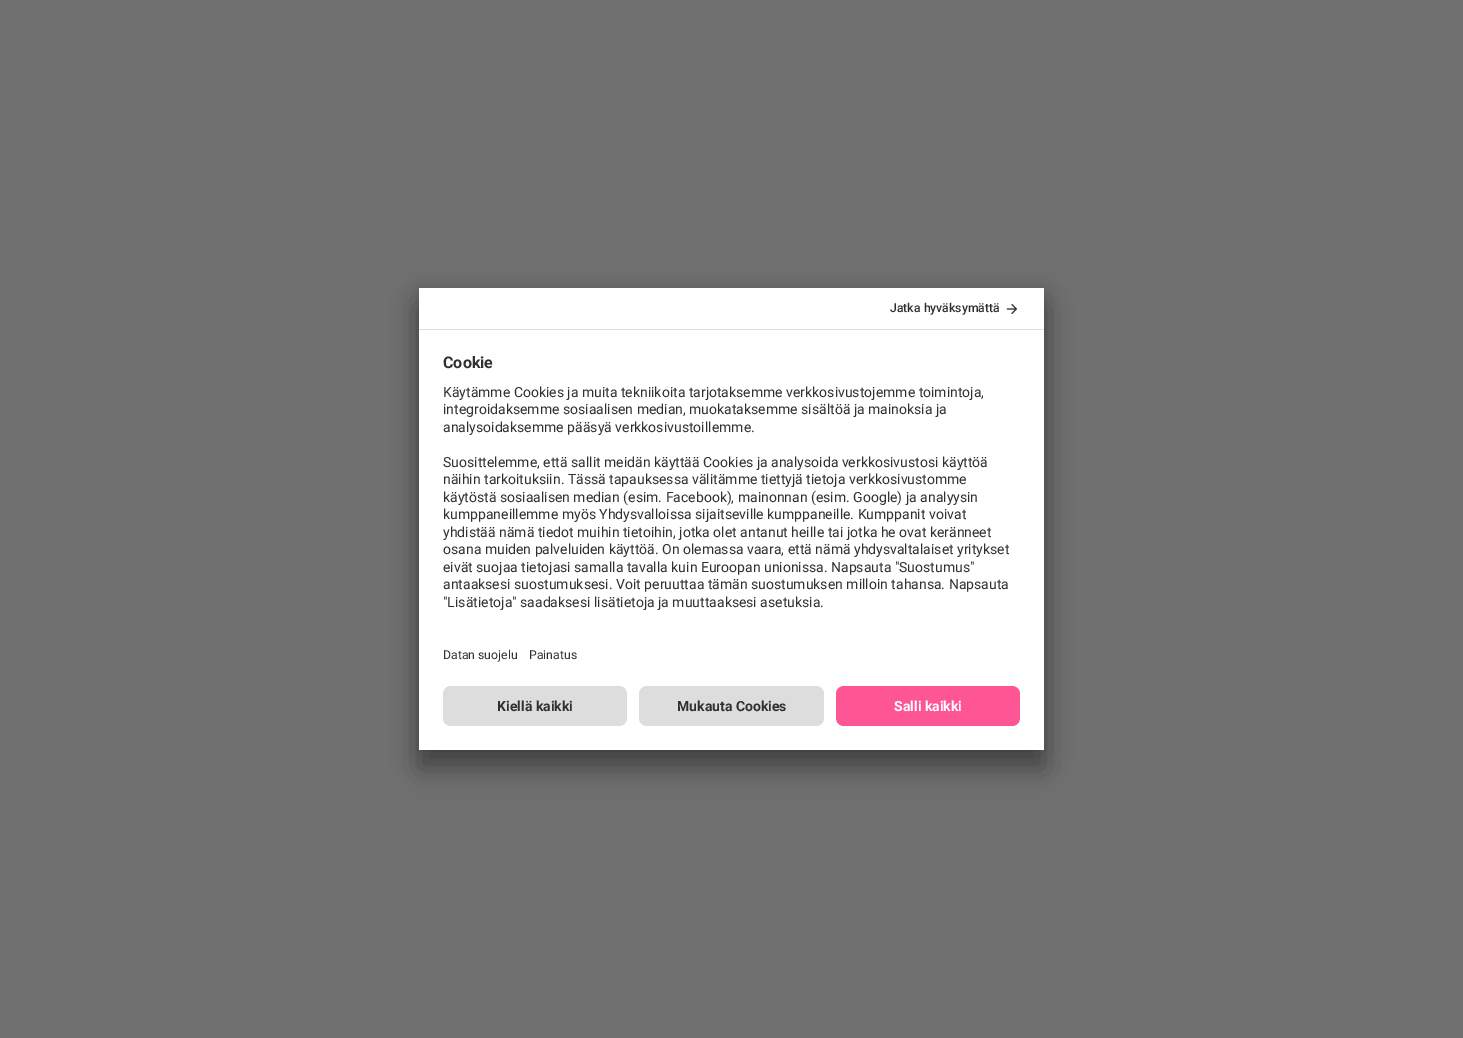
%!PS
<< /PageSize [1463 1038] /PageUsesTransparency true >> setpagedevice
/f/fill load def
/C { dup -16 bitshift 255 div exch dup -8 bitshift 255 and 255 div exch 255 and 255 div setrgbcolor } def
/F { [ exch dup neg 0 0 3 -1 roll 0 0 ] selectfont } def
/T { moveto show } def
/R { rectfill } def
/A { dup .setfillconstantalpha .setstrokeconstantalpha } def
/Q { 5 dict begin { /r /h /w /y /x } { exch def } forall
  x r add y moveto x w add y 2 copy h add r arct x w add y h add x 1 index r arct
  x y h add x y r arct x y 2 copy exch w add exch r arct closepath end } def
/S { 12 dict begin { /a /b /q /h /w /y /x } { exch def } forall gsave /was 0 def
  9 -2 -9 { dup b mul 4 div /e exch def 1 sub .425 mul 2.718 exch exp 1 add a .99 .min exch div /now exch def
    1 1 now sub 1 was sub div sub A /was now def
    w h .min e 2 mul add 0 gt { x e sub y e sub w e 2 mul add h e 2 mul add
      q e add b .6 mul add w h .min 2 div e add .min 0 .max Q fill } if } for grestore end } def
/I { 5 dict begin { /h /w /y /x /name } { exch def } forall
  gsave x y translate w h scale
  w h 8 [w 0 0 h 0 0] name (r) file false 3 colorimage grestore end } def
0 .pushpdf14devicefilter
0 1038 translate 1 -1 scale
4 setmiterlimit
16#707070 C
0 0 1463 1038 R
16#000000 C
419 308 625 462 0 14 .3 S
419 293 625 462 0 13 .22 S
16#FFFFFF C
419 288 625 462 R
16#DEDEDE C
419 329 625 1 R
/Roboto-Medium 12.25 F
16#303030 C
(Jatka hyväksymättä) 890 312 T
(1.rgb) 1006 304 11 10 I
/Roboto-Bold 16 F
(Cookie) 443 368 T
/Roboto-Regular 14 F
(Käytämme Cookies ja muita tekniikoita tarjotaksemme verkkosivustojemme toimintoja,) 443 397 T
(integroidaksemme sosiaalisen median, muokataksemme sisältöä ja mainoksia ja) 443 414 T
(analysoidaksemme pääsyä verkkosivustoillemme.) 443 432 T
(Suosittelemme, että sallit meidän käyttää Cookies ja analysoida verkkosivustosi käyttöä) 443 467 T
(näihin tarkoituksiin. Tässä tapauksessa välitämme tiettyjä tietoja verkkosivustomme) 443 484 T
(käytöstä sosiaalisen median \(esim. Facebook\), mainonnan \(esim. Google\) ja analyysin) 443 502 T
(kumppaneillemme myös Yhdysvalloissa sijaitseville kumppaneille. Kumppanit voivat) 443 519 T
(yhdistää nämä tiedot muihin tietoihin, jotka olet antanut heille tai jotka he ovat keränneet) 443 537 T
(osana muiden palveluiden käyttöä. On olemassa vaara, että nämä yhdysvaltalaiset yritykset) 443 554 T
(eivät suojaa tietojasi samalla tavalla kuin Euroopan unionissa. Napsauta "Suostumus") 443 572 T
(antaaksesi suostumuksesi. Voit peruuttaa tämän suostumuksen milloin tahansa. Napsauta) 443 589 T
("Lisätietoja" saadaksesi lisätietoja ja muuttaaksesi asetuksia.) 443 607 T
/Roboto-Regular 12.25 F
(Datan suojelu) 443 659 T
(Painatus) 529 659 T
16#DDDDDD C
443 686 184 40 8 Q f
/Roboto-Bold 14 F
16#303030 C
(Kiellä kaikki) 497 711 T
16#DDDDDD C
639 686 185 40 8 Q f
16#303030 C
(Mukauta Cookies) 677 711 T
16#FE5695 C
836 686 184 40 8 Q f
16#FFFFFF C
(Salli kaikki) 894 711 T
.poppdf14devicefilter showpage
